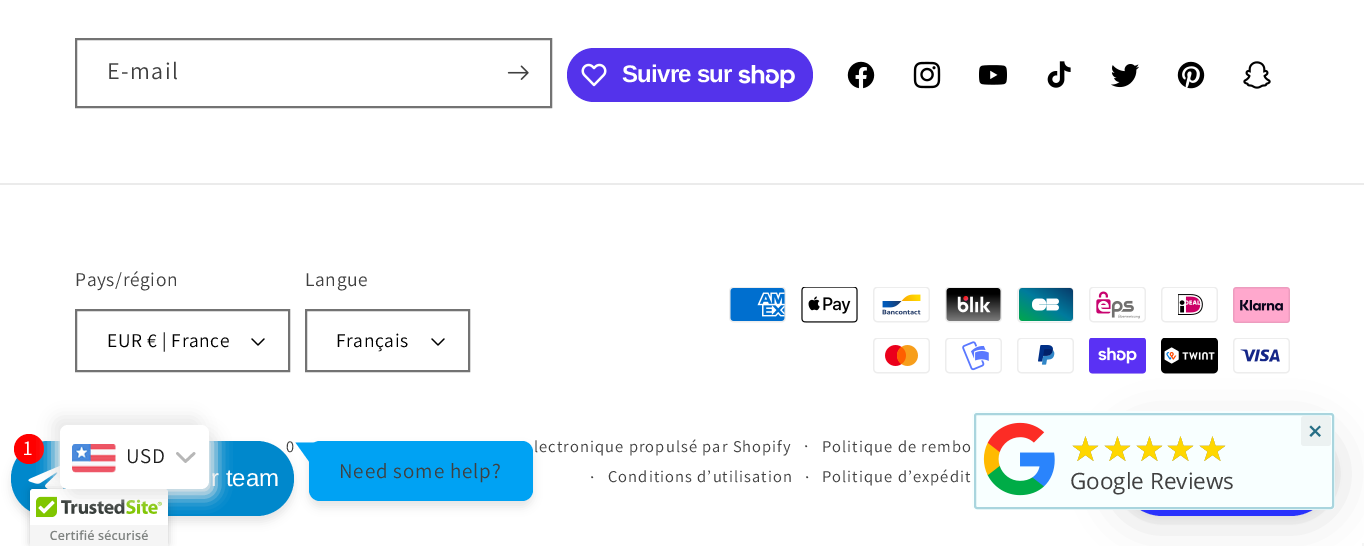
%!PS
<< /PageSize [1364 546] /PageUsesTransparency true >> setpagedevice
/m/moveto load def
/l/rlineto load def
/c/rcurveto load def
/z/closepath load def
/f/fill load def
/s/stroke load def
/w/setlinewidth load def
/C { dup -16 bitshift 255 div exch dup -8 bitshift 255 and 255 div exch 255 and 255 div setrgbcolor } def
/F { [ exch dup neg 0 0 3 -1 roll 0 0 ] selectfont } def
/T { moveto show } def
/R { rectfill } def
/A { dup .setfillconstantalpha .setstrokeconstantalpha } def
/O { newpath 0 360 arc closepath } def
/Q { 5 dict begin { /r /h /w /y /x } { exch def } forall
  x r add y moveto x w add y 2 copy h add r arct x w add y h add x 1 index r arct
  x y h add x y r arct x y 2 copy exch w add exch r arct closepath end } def
/S { 12 dict begin { /a /b /q /h /w /y /x } { exch def } forall gsave /was 0 def
  9 -2 -9 { dup b mul 4 div /e exch def 1 sub .425 mul 2.718 exch exp 1 add a .99 .min exch div /now exch def
    1 1 now sub 1 was sub div sub A /was now def
    w h .min e 2 mul add 0 gt { x e sub y e sub w e 2 mul add h e 2 mul add
      q e add b .6 mul add w h .min 2 div e add .min 0 .max Q fill } if } for grestore end } def
/I { 5 dict begin { /h /w /y /x /name } { exch def } forall
  gsave x y translate w h scale
  w h 8 [w 0 0 h 0 0] name (r) file false 3 colorimage grestore end } def
0 .pushpdf14devicefilter
0 546 translate 1 -1 scale
4 setmiterlimit
16#FFFFFF C
0 0 1364 546 R
16#737373 C
2 w
76 39 475 68 rectstroke
/Assistant-Regular 24 F
16#404040 C
107 79 m 1.5 0 (E-mail) ashow
(1.rgb) 507 65 22 15 I
16#5433EB C
567 48 246 54 27 Q f
(2.rgb) 581 63 26 24 I
/LiberationSans-Bold 24 F
16#FFFFFF C
622 82 m -.75 0 (Suivre sur) ashow
(3.rgb) 738 65 57 23 I
(4.rgb) 847 61 28 28 I
(5.rgb) 913 61 28 28 I
(6.rgb) 979 65 28 20 I
(7.rgb) 1047 61 24 27 I
(8.rgb) 1111 64 28 24 I
(9.rgb) 1177 61 28 28 I
(10.rgb) 1243 61 28 28 I
16#EBEBEB C
0 183 1364 2 R
/Assistant-Regular 19.5 F
16#404040 C
75 286 m .6 0 (Pays/région) ashow
(11.rgb) 251 338 14 8 I
16#737373 C
76 310 213 61 rectstroke
16#000000 C
107 347 m .6 0 (EUR € | France) ashow
16#404040 C
305 286 m .6 0 (Langue) ashow
(11.rgb) 431 338 14 8 I
16#737373 C
306 310 163 61 rectstroke
16#000000 C
336 347 m .6 0 (Français) ashow
(12.rgb) 729 287 57 36 I
(13.rgb) 801 287 57 36 I
(14.rgb) 873 287 57 36 I
(15.rgb) 945 287 57 36 I
(16.rgb) 1017 287 57 36 I
(17.rgb) 1089 287 57 36 I
(18.rgb) 1161 287 57 36 I
(19.rgb) 1233 287 57 36 I
(20.rgb) 873 338 57 36 I
(21.rgb) 945 338 57 36 I
(22.rgb) 1017 338 57 36 I
(23.rgb) 1089 338 57 36 I
(24.rgb) 1161 338 57 36 I
(25.rgb) 1233 338 57 36 I
/Assistant-Regular 16.5 F
16#404040 C
534 452 m 1.05 0 (lectronique propulsé par Shopify) ashow
286 452 m 1.05 0 (0) ashow
/Assistant-Regular 18 F
804 452 m 1.05 0 (·) ashow
/Assistant-Regular 16.5 F
822 452 m 1.05 0 (Politique de rembo) ashow
/Assistant-Regular 18 F
590 483 m 1.05 0 (·) ashow
/Assistant-Regular 16.5 F
608 482 m 1.05 0 (Conditions d’utilisation) ashow
/Assistant-Regular 18 F
805 483 m 1.05 0 (·) ashow
/Assistant-Regular 16.5 F
822 482 m 1.05 0 (Politique d’expédit) ashow
16#000000 C
1118 429 217 90 45 22.5 .15 S
1118 428 217 90 45 4.5 .05 S
16#2932FC C
1118 426 217 90 45 Q f
16#000000 C
11 447 283 75 37.5 4.5 .1 S
16#0088CC C
11 441 283 75 37.5 Q f
16#FF0000 C
29 449 15 O f
/Assistant-Regular 21 F
16#FFFFFF C
23 455 m .9 0 (1) ashow
(26.rgb) 28 465 36 24 I
/LiberationSans-Regular 24 F
(r team) 211 486 T
16#000000 C
309 447 224 60 11 4.5 .1 S
16#00A2F3 C
309 441 224 60 11 Q f
318 442.5 m 0 31.5 l -22.5 -31.5 l z f
/Assistant-Regular 21 F
16#404040 C
339 478 m .9 0 (Need some help?) ashow
16#F8FFFF C
972 411 363 99 5 Q f
16#A9D5DE C
975 414 358 94 2 Q s
16#ECF2F2 C
1301 416 30 30 3 Q f
/OpenSans-Bold 24 F
16#276F86 C
1308 440 m .9 0 (×) ashow
(27.rgb) 983 422 72 74 I
/DejaVuSans-Regular 34.5 F
16#808080 C
1070 461 m .9 0 (★★★★★) ashow
16#FFD700 C
1070 461 m .9 0 (★★★★★) ashow
/OpenSans-Regular 22.5 F
16#404040 C
(Google Reviews) 1070 489 T
16#000000 C
30 489 138 57 3 4 .2 S
16#FFFFFF C
33 489 m 132 0 l 1.5 0 3 1.5 3 3 c 0 54 l -138 0 l 0 -54 l 0 -1.5 1.5 -3 3 -3 c z f
(29.rgb) 30 489 138 57 I
16#E8E8E8 C
53 417 148 65 8 7.5 1 S
68 432 148 65 8 7.5 1 S
16#FFFFFF C
60 425 149 64 8 Q f
(28.rgb) 72 444 44 29 I
/Assistant-Regular 21 F
16#1E1E1E C
126 463 m .9 0 (USD) ashow
16#B7B7B7 C
2.7 w
1 setlinecap
1 setlinejoin
177.5 453.5 m 8 8 l 8.5 -8 l s
16#F5F5F5 C
1362 543 2 3 R
.poppdf14devicefilter showpage
